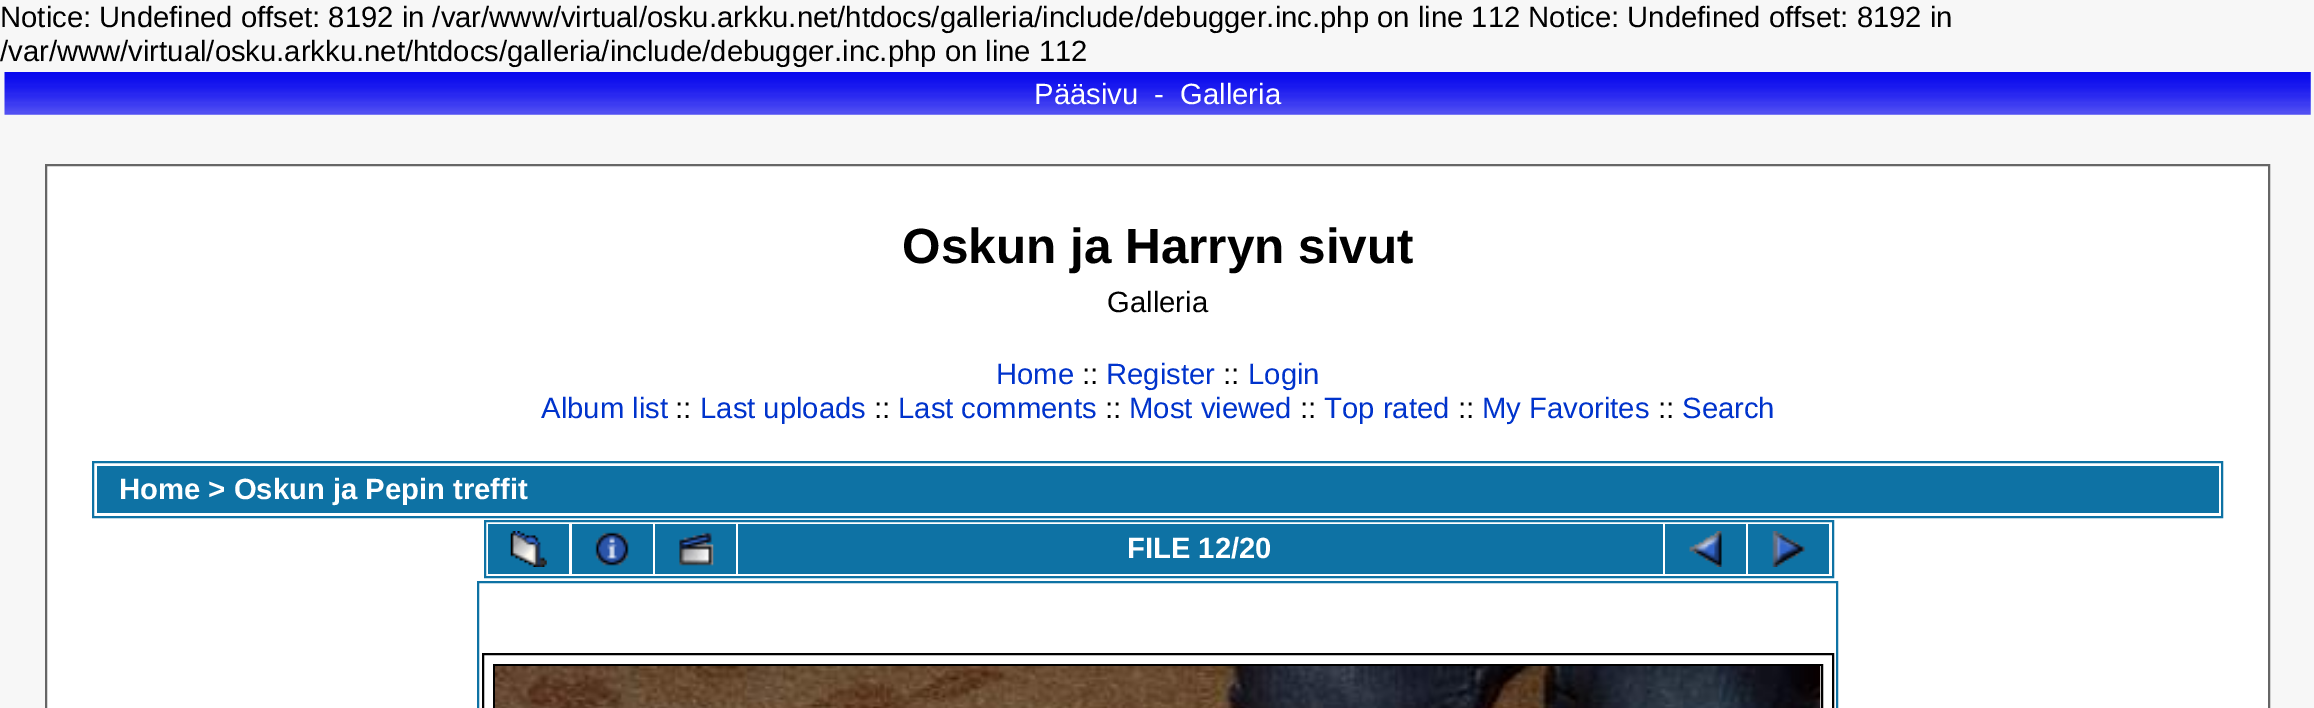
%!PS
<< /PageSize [2314 708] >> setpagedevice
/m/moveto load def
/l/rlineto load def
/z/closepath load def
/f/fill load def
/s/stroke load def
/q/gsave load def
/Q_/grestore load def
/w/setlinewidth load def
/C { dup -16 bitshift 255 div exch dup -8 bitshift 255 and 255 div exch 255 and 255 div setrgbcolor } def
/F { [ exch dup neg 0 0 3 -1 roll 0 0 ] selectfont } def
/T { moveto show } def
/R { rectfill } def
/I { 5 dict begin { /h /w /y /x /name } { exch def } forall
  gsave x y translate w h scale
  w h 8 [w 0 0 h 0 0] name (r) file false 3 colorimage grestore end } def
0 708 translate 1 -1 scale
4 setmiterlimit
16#F7F7F7 C
0 0 2314 708 R
/LiberationSans-Regular 29.25 F
16#000000 C
(Notice: Undefined offset: 8192 in /var/www/virtual/osku.arkku.net/htdocs/galleria/include/debugger.inc.php on line 112 Notice: Undefined offset: 8192 in) 0 27 T
(/var/www/virtual/osku.arkku.net/htdocs/galleria/include/debugger.inc.php on line 112) 0 61 T
(1.rgb) 4 72 2307 43 I
16#FFFFFF C
(Pääsivu) 1034 104 T
(-) 1154 104 T
(Galleria) 1180 104 T
46 165 m 2223 0 l 0 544 l -2223 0 l z q f Q_
16#666666 C
2 w
s
/LiberationSans-Bold 49.5 F
16#000000 C
(Oskun ja Harryn sivut) 902 263 T
/LiberationSans-Regular 29.25 F
(Galleria) 1107 312 T
16#0033CC C
(Home) 996 384 T
16#000000 C
(::) 1082 384 T
16#0033CC C
(Register) 1106 384 T
16#000000 C
(::) 1223 384 T
16#0033CC C
(Login) 1248 384 T
(Album list) 541 418 T
16#000000 C
(::) 675 418 T
16#0033CC C
(Last uploads) 700 418 T
16#000000 C
(::) 874 418 T
16#0033CC C
(Last comments) 898 418 T
16#000000 C
(::) 1105 418 T
16#0033CC C
(Most viewed) 1129 418 T
16#000000 C
(::) 1300 418 T
16#0033CC C
(Top rated) 1324 418 T
16#000000 C
(::) 1458 418 T
16#0033CC C
(My Favorites) 1482 418 T
16#000000 C
(::) 1658 418 T
16#0033CC C
(Search) 1682 418 T
16#0E72A4 C
93 462 2129 55 rectstroke
97 466 2122 47 R
/LiberationSans-Bold 29.25 F
16#FFFFFF C
(Home > Oskun ja Pepin treffit) 119 499 T
16#0E72A4 C
485 521 1348 56 rectstroke
488 524 81 50 R
(2.rgb) 510 531 37 36 I
572 524 81 50 R
(3.rgb) 595 532 34 34 I
655 524 81 50 R
(4.rgb) 679 532 35 34 I
738 524 925 50 R
16#FFFFFF C
(FILE 12/20) 1127 558 T
16#0E72A4 C
1665 524 81 50 R
(5.rgb) 1689 531 33 36 I
1748 524 81 50 R
(6.rgb) 1772 531 34 36 I
478 582 1359 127 rectstroke
16#000000 C
483 654 1350 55 rectstroke
494 665 1328 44 rectstroke
(7.rgb) 495 666 1326 42 I
showpage
